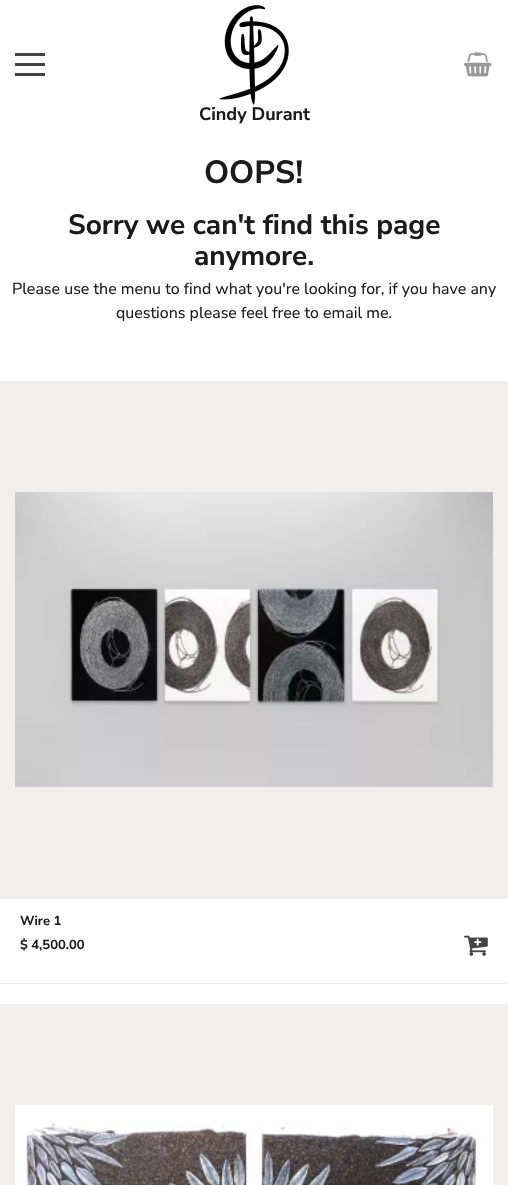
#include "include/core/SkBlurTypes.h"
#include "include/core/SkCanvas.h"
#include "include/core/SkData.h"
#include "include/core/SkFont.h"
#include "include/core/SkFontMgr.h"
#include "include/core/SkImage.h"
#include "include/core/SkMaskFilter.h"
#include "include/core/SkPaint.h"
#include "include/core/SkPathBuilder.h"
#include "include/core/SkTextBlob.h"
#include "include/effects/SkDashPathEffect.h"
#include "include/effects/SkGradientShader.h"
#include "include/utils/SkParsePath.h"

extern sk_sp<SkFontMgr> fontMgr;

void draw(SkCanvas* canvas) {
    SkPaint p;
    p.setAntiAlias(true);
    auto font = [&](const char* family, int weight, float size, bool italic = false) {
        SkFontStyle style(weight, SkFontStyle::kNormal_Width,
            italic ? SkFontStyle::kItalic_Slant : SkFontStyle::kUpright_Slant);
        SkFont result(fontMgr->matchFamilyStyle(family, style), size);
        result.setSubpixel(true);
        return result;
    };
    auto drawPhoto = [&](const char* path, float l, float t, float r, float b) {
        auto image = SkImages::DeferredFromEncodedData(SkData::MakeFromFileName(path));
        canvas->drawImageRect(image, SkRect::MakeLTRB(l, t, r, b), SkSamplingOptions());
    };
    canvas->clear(0xFFFFFFFF);
    {
        const struct { float l, t, r, b; SkColor color; } items[] = {
            {15, 53, 45, 56, 0xFF444444},
            {15, 63, 45, 66, 0xFF444444},
            {15, 73, 45, 76, 0xFF444444},
        };
        for (auto [l, t, r, b, color] : items) {
            p.setColor(color);
            canvas->drawRect(SkRect::MakeLTRB(l, t, r, b), p);
        }
    }
    drawPhoto("media/1.png", 464, 52, 492, 77);
    drawPhoto("media/2.png", 219, 5, 289, 105);
    auto font1 = font("Nunito Sans", 200, 18);
    p.setColor(0xFF1B1B1B);
    canvas->drawString("Cindy Durant", 199, 120, font1, p);
    auto font2 = font("Nunito Sans", 200, 32);
    canvas->drawString("OOPS!", 204, 183, font2, p);
    auto font3 = font("Nunito Sans", 200, 28);
    canvas->drawString("Sorry we can't find this page", 68, 234, font3, p);
    canvas->drawString("anymore.", 194, 265, font3, p);
    auto font4 = font("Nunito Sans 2", 200, 16);
    canvas->drawString("Please use the menu to find what you're looking for, if you have any", 12, 294, font4, p);
    canvas->drawString("questions please feel free to email me.", 116, 318, font4, p);
    p.setColor(0xFFF0EFEB);
    canvas->drawRect(SkRect::MakeLTRB(0, 381, 508, 899), p);
    drawPhoto("media/3.png", 15, 492, 493, 787);
    p.setColor(0xFFE8E8E8);
    canvas->drawRect(SkRect::MakeLTRB(0, 983, 508, 984), p);
    auto font5 = font("Nunito Sans", 200, 13);
    p.setColor(0xFF1B1B1B);
    canvas->drawString("Wire 1", 20, 925, font5, p);
    canvas->drawString("$ 4,500.00", 20, 949, font5, p);
    drawPhoto("media/4.png", 464, 935, 488, 956);
    p.setColor(0xFFF0EFEB);
    canvas->drawRect(SkRect::MakeLTRB(0, 1004, 508, 1185), p);
    drawPhoto("media/5.png", 15, 1105, 493, 1185);
}
